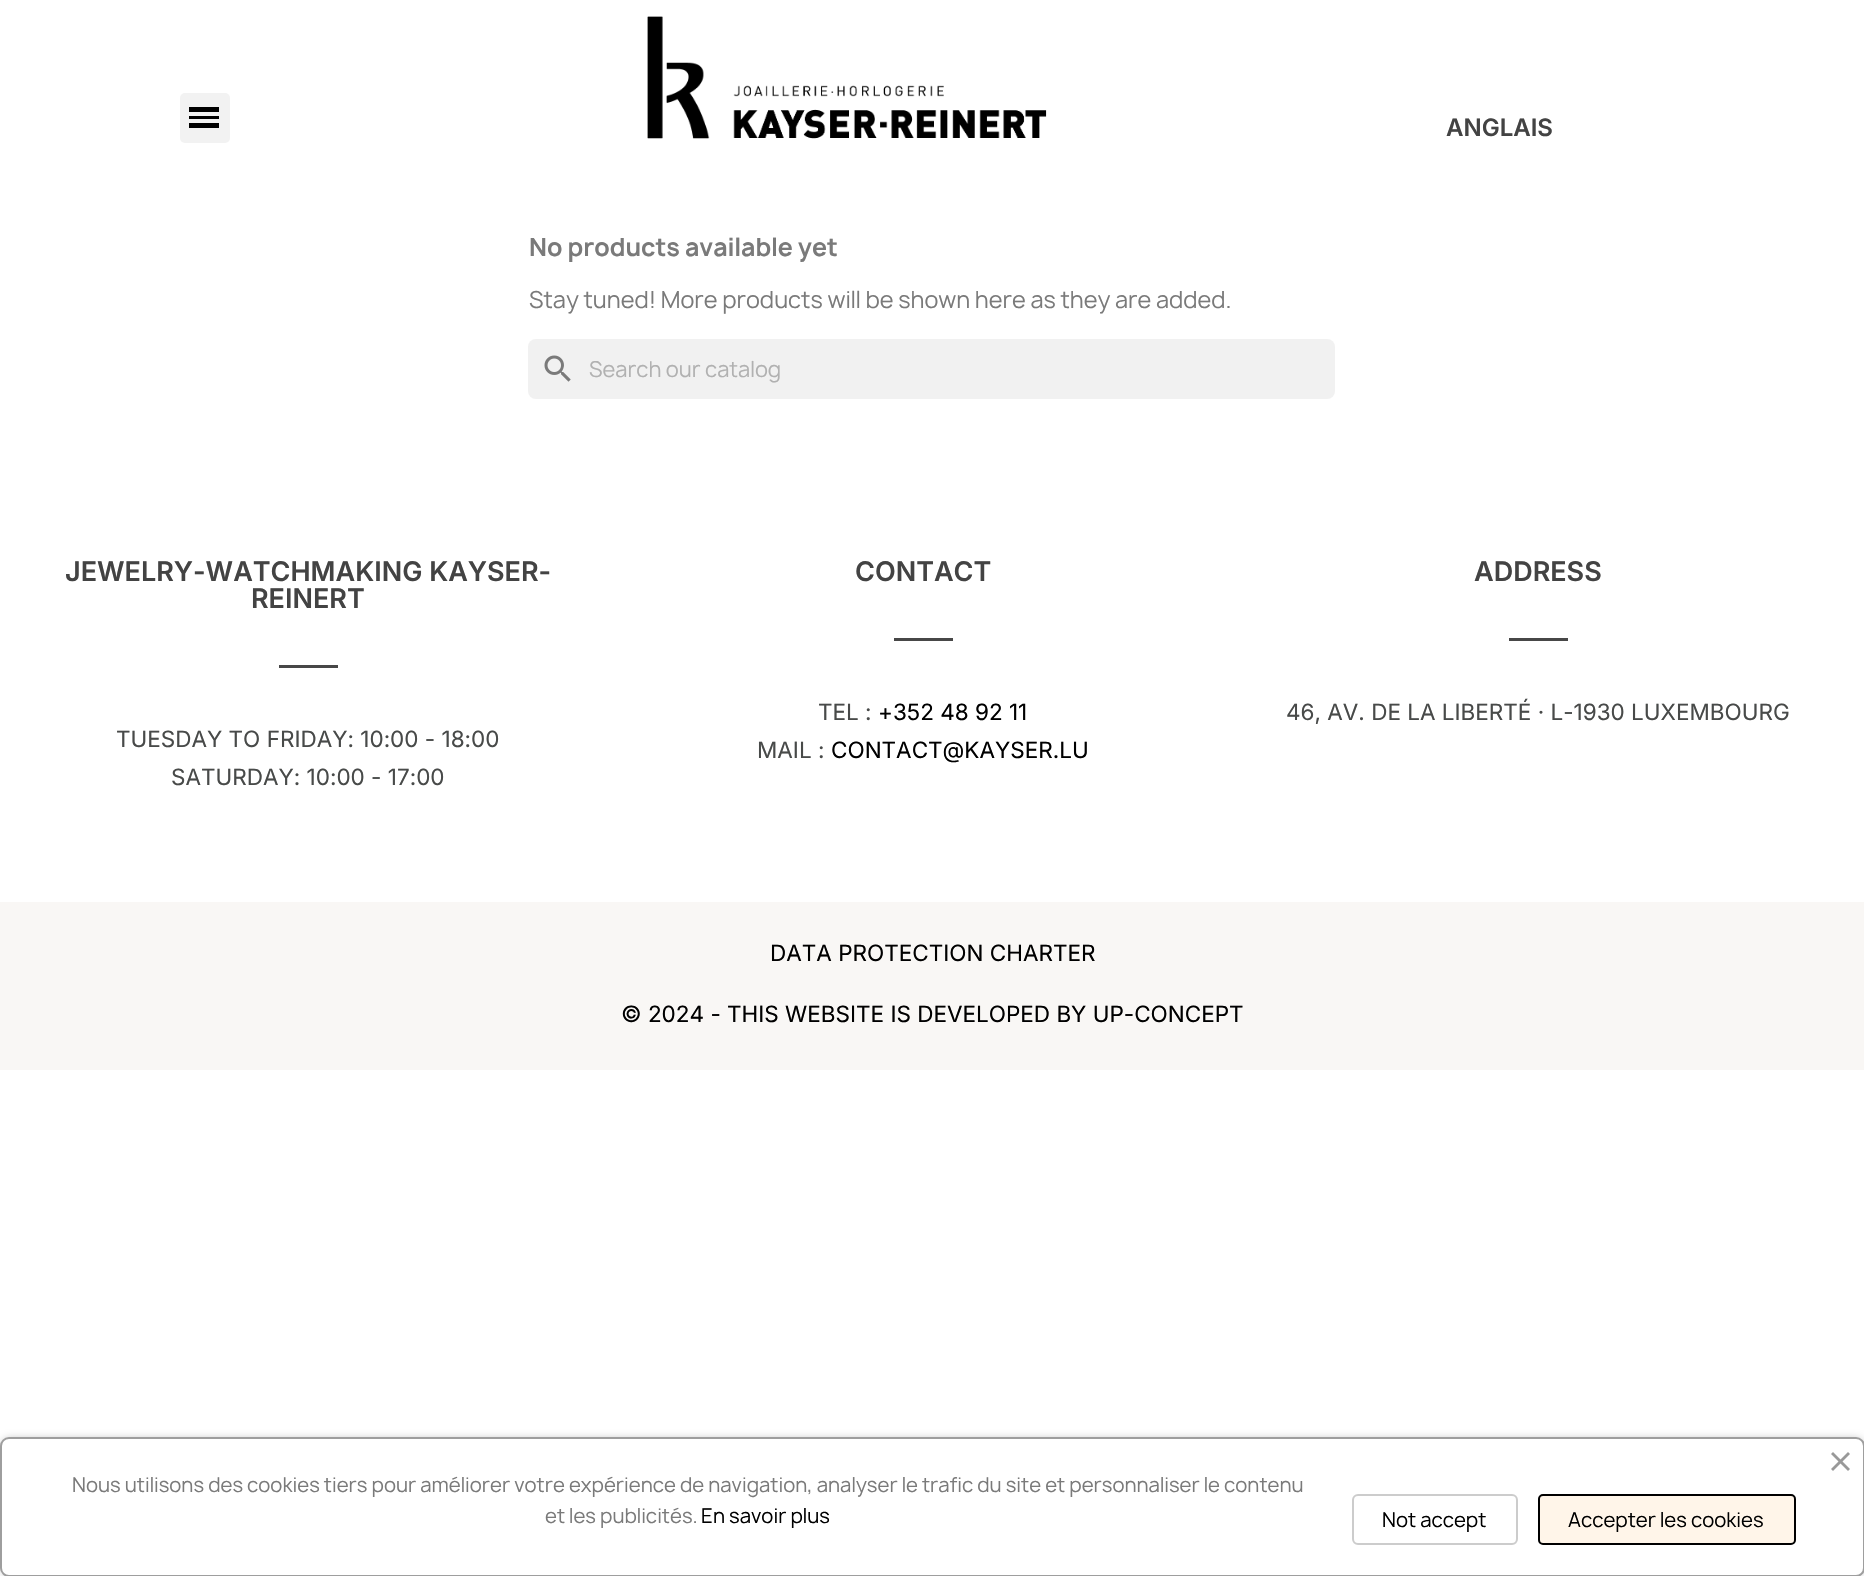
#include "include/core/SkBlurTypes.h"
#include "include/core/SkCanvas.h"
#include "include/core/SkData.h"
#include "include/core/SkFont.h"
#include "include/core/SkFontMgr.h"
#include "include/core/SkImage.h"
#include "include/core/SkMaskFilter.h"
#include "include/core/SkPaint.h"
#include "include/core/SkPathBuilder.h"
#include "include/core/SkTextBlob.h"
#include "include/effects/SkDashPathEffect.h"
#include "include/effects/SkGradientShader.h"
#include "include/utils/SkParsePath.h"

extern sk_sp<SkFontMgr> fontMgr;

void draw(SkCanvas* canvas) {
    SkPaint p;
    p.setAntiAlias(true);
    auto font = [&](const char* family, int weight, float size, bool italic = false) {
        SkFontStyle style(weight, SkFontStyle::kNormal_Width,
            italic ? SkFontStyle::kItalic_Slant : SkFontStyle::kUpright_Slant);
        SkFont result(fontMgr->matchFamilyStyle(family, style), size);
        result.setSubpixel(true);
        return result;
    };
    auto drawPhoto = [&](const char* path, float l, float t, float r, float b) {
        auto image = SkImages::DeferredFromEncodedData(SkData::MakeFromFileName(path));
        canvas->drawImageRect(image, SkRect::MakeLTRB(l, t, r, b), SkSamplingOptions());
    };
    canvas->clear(0xFFFFFFFF);
    p.setColor(0xFFF2F2F2);
    canvas->drawRoundRect(SkRect::MakeLTRB(180, 93, 230, 143), 5, 5, p);
    {
        const struct { float l, t, r, b; SkColor color; } items[] = {
            {189, 116, 219, 119, 0xFF000000},
            {189, 107, 219, 112, 0xFF000000},
            {189, 123, 219, 128, 0xFF000000},
        };
        for (auto [l, t, r, b, color] : items) {
            p.setColor(color);
            canvas->drawRect(SkRect::MakeLTRB(l, t, r, b), p);
        }
    }
    drawPhoto("media/1.png", 647, 16, 1047, 139);
    auto font1 = font("Inter", 600, 24);
    p.setColor(0xFF434343);
    canvas->drawString("ANGLAIS", 1446, 136, font1, p);
    auto font2 = font("Manrope", 700, 24);
    p.setColor(0xFF7A7A7A);
    canvas->drawString("No products available yet", 529, 256, font2, p);
    auto font3 = font("Manrope", 400, 22.5f);
    canvas->drawString("Stay tuned! More products will be shown here as they are added.", 529, 308, font3, p);
    p.setColor(0xFFF1F1F1);
    canvas->drawRoundRect(SkRect::MakeLTRB(528, 339, 1335, 399), 8, 8, p);
    drawPhoto("media/2.png", 544, 355, 571, 382);
    auto font4 = font("Manrope", 400, 21);
    p.setColor(0xFFB1B1B1);
    canvas->drawString("Search our catalog", 589, 377, font4, p);
    auto font5 = font("Inter", 600, 27);
    p.setColor(0xFF434343);
    canvas->drawString("JEWELRY-WATCHMAKING KAYSER-", 65, 581, font5, p);
    canvas->drawString("REINERT", 251, 608, font5, p);
    p.setColor(0xFF474747);
    canvas->drawRect(SkRect::MakeLTRB(279, 665, 338, 668), p);
    auto font6 = font("Inter", 400, 22.5f);
    p.setColor(0xFF484A49);
    canvas->drawString("TUESDAY TO FRIDAY: 10:00 - 18:00", 116, 747, font6, p);
    canvas->drawString("SATURDAY: 10:00 - 17:00", 171, 785, font6, p);
    p.setColor(0xFF434343);
    canvas->drawString("CONTACT", 855, 581, font5, p);
    p.setColor(0xFF474747);
    canvas->drawRect(SkRect::MakeLTRB(894, 638, 953, 641), p);
    p.setColor(0xFF484A49);
    canvas->drawString("TEL :", 818, 720, font6, p);
    p.setColor(0xFF000000);
    canvas->drawString("+352 48 92 11", 878, 720, font6, p);
    p.setColor(0xFF484A49);
    canvas->drawString("MAIL :", 757, 758, font6, p);
    p.setColor(0xFF000000);
    canvas->drawString("CONTACT@KAYSER.LU", 831, 758, font6, p);
    p.setColor(0xFF434343);
    canvas->drawString("ADDRESS", 1474, 581, font5, p);
    p.setColor(0xFF474747);
    canvas->drawRect(SkRect::MakeLTRB(1509, 638, 1568, 641), p);
    p.setColor(0xFF484A49);
    canvas->drawString("46, AV. DE LA LIBERTÉ · L-1930 LUXEMBOURG", 1286, 720, font6, p);
    p.setColor(0xFFF9F7F5);
    canvas->drawRect(SkRect::MakeLTRB(0, 902, 1864, 1070), p);
    p.setColor(0xFF000000);
    canvas->drawString("DATA PROTECTION CHARTER", 770, 961, font6, p);
    canvas->drawString("© 2024 - THIS WEBSITE IS DEVELOPED BY UP-CONCEPT", 621, 1022, font6, p);
    p.setColor(0xFF9E9E9E);
    p.setMaskFilter(SkMaskFilter::MakeBlur(kNormal_SkBlurStyle, 5));
    canvas->drawRoundRect(SkRect::MakeLTRB(3, 1440, 1862, 1574), 6, 6, p);
    p.setMaskFilter(nullptr);
    p.setColor(0xFFFFFFFF);
    canvas->drawRoundRect(SkRect::MakeLTRB(1, 1438, 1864, 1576), 8, 8, p);
    p.setStyle(SkPaint::kStroke_Style);
    p.setStrokeWidth(2);
    p.setColor(0xFF9E9E9E);
    canvas->drawRoundRect(SkRect::MakeLTRB(1, 1438, 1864, 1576), 8, 8, p);
    p.setStyle(SkPaint::kFill_Style);
    p.setColor(0xFF999999);
    canvas->drawPath(SkPathBuilder().moveTo(1831, 1469).lineTo(1848, 1452).lineTo(1850, 1454).lineTo(1833, 1471).close().detach(), p);
    canvas->drawPath(SkPathBuilder().moveTo(1833, 1452).lineTo(1850, 1469).lineTo(1848, 1471).lineTo(1831, 1454).close().detach(), p);
    auto font7 = font("Manrope", 400, 19.5f);
    p.setColor(0xFF7A7A7A);
    canvas->drawString("Nous utilisons des cookies tiers pour améliorer votre expérience de navigation, analyser le trafic du site et personnaliser le contenu", 72, 1492, font7, p);
    canvas->drawString("et les publicités.", 545, 1523, font7, p);
    p.setColor(0xFF000000);
    canvas->drawString("En savoir plus", 701, 1523, font7, p);
    p.setStyle(SkPaint::kStroke_Style);
    p.setColor(0xFFCCCCCC);
    canvas->drawRoundRect(SkRect::MakeLTRB(1353, 1495, 1517, 1544), 5, 5, p);
    p.setStyle(SkPaint::kFill_Style);
    p.setColor(0xFF000000);
    canvas->drawString("Not accept", 1382, 1527, font7, p);
    p.setColor(0xFFFFF5E9);
    canvas->drawRoundRect(SkRect::MakeLTRB(1539, 1495, 1795, 1544), 4, 4, p);
    p.setStyle(SkPaint::kStroke_Style);
    p.setColor(0xFF000000);
    canvas->drawRoundRect(SkRect::MakeLTRB(1539, 1495, 1795, 1544), 4, 4, p);
    p.setStyle(SkPaint::kFill_Style);
    canvas->drawString("Accepter les cookies", 1568, 1527, font7, p);
}
